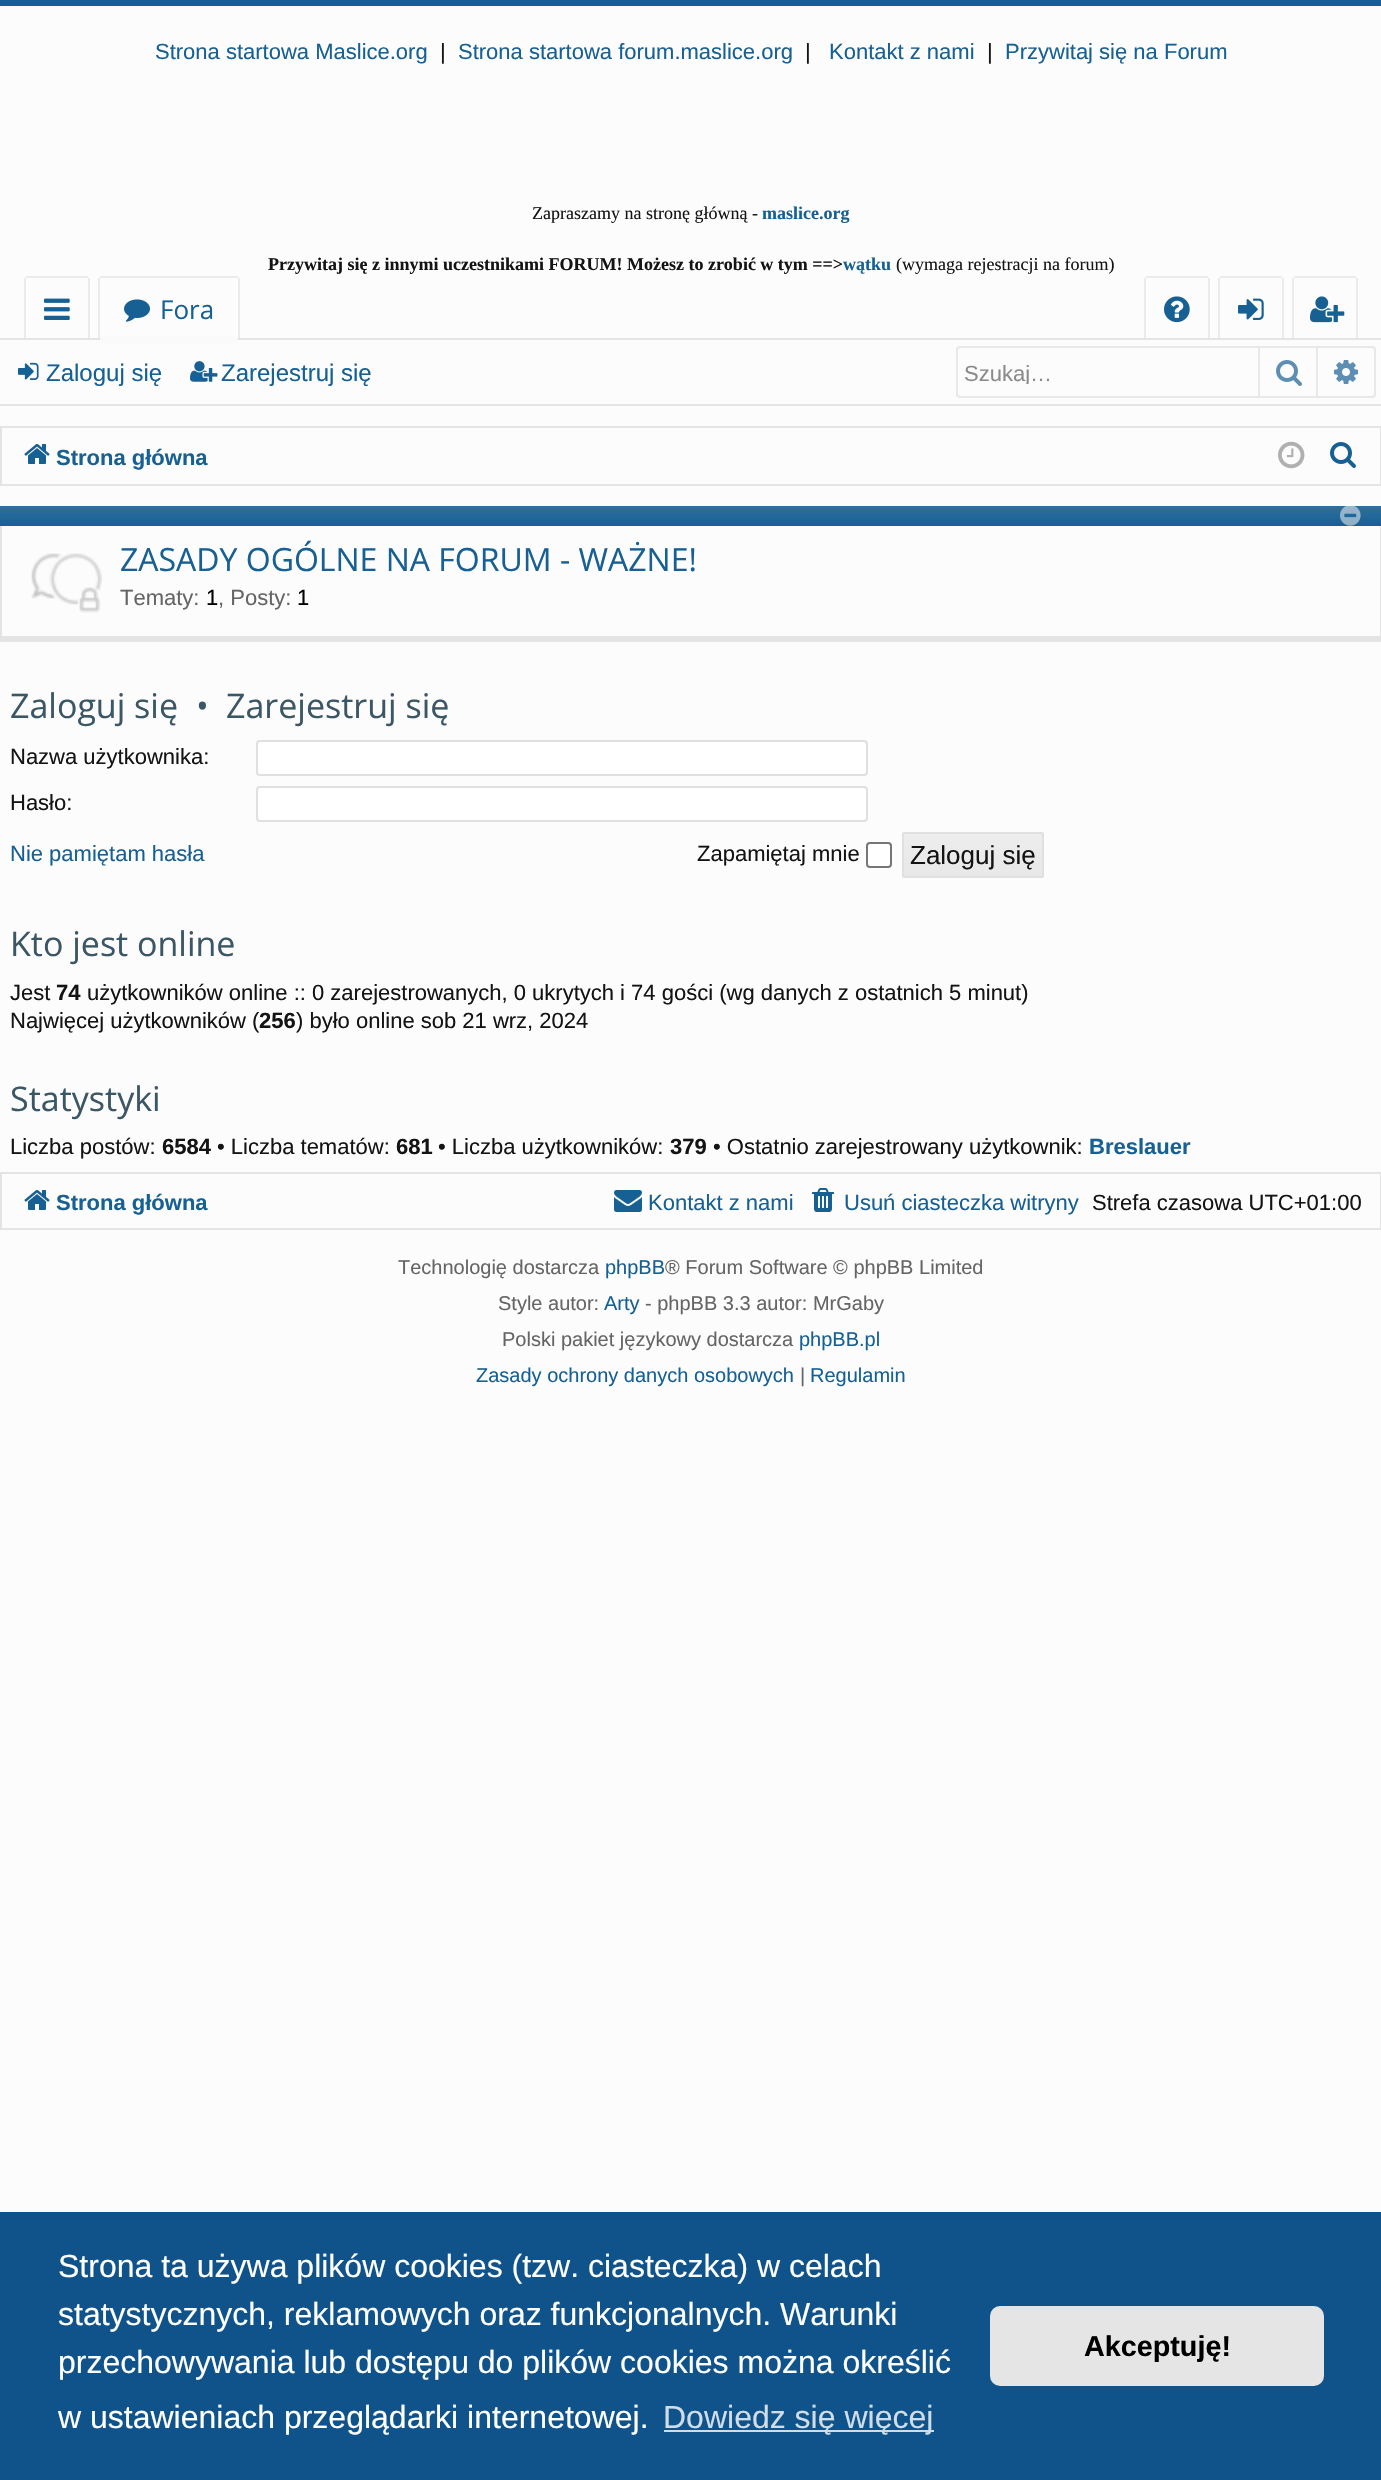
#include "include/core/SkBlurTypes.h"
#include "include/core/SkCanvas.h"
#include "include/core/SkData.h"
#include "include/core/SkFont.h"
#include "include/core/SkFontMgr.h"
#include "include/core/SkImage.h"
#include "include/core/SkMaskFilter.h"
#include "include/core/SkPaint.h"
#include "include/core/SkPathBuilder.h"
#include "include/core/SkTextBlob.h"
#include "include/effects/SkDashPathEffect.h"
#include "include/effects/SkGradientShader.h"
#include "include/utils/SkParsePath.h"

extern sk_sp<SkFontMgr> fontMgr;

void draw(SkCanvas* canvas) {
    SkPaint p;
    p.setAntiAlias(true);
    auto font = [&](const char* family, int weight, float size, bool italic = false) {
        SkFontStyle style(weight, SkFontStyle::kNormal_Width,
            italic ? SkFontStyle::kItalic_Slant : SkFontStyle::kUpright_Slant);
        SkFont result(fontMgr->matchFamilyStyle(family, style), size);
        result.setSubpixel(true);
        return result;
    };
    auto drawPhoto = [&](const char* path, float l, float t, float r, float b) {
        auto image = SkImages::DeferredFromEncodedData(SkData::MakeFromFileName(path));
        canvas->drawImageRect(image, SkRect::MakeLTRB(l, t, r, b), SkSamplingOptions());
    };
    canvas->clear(0xFFFCFCFC);
    p.setColor(0xFF176093);
    canvas->drawRect(SkRect::MakeLTRB(0, 0, 1381, 6), p);
    auto font1 = font("Liberation Sans", 400, 22);
    canvas->drawString("Strona startowa Maslice.org", 155, 59, font1, p);
    p.setColor(0xFF141414);
    canvas->drawString("|", 440, 59, font1, p);
    p.setColor(0xFF176093);
    canvas->drawString("Strona startowa forum.maslice.org", 458, 59, font1, p);
    p.setColor(0xFF141414);
    canvas->drawString("|", 805, 59, font1, p);
    p.setColor(0xFF176093);
    canvas->drawString("Kontakt z nami", 829, 59, font1, p);
    p.setColor(0xFF141414);
    canvas->drawString("|", 987, 59, font1, p);
    p.setColor(0xFF176093);
    canvas->drawString("Przywitaj się na Forum", 1005, 59, font1, p);
    auto font2 = font("Liberation Serif", 700, 18);
    canvas->drawString("maslice.org", 762, 219, font2, p);
    p.setColor(0xFF141414);
    canvas->drawString("Przywitaj się z innymi uczestnikami FORUM! Możesz to zrobić w tym ==>", 268, 270, font2, p);
    p.setColor(0xFF176093);
    canvas->drawString("wątku", 843, 270, font2, p);
    auto font3 = font("Liberation Serif", 400, 18);
    p.setColor(0xFF141414);
    canvas->drawString("Zapraszamy na stronę główną -", 532, 219, font3, p);
    canvas->drawString("(wymaga rejestracji na forum)", 896, 270, font3, p);
    {
        const struct { float l, t, r, b; SkColor color; } items[] = {
            {26, 276, 88, 278, 0xFFEBEBEB},
            {88, 278, 90, 340, 0xFFEBEBEB},
            {24, 278, 26, 340, 0xFFEBEBEB},
        };
        for (auto [l, t, r, b, color] : items) {
            p.setColor(color);
            canvas->drawRect(SkRect::MakeLTRB(l, t, r, b), p);
        }
    }
    drawPhoto("media/1.png", 44, 298, 70, 320);
    {
        const struct { float l, t, r, b; SkColor color; } items[] = {
            {100, 276, 238, 278, 0xFFEBEBEB},
            {238, 278, 240, 340, 0xFFEBEBEB},
            {98, 278, 100, 340, 0xFFEBEBEB},
        };
        for (auto [l, t, r, b, color] : items) {
            p.setColor(color);
            canvas->drawRect(SkRect::MakeLTRB(l, t, r, b), p);
        }
    }
    drawPhoto("media/2.png", 124, 299, 150, 322);
    auto font4 = font("Open Sans", 400, 26);
    p.setColor(0xFF176093);
    canvas->drawString("Fora", 160, 319, font4, p);
    {
        const struct { float l, t, r, b; SkColor color; } items[] = {
            {1208, 278, 1210, 340, 0xFFEBEBEB},
            {1144, 278, 1146, 340, 0xFFEBEBEB},
            {1282, 278, 1284, 340, 0xFFEBEBEB},
            {1218, 278, 1220, 340, 0xFFEBEBEB},
            {1356, 278, 1358, 340, 0xFFEBEBEB},
            {1292, 278, 1294, 340, 0xFFEBEBEB},
            {0, 338, 1381, 340, 0xFFE4E4E4},
        };
        for (auto [l, t, r, b, color] : items) {
            p.setColor(color);
            canvas->drawRect(SkRect::MakeLTRB(l, t, r, b), p);
        }
    }
    p.setColor(0xFFFAFAFA);
    canvas->drawPath(SkPathBuilder().moveTo(104, 336).lineTo(234, 336).cubicTo(236, 336, 238, 338, 238, 340).lineTo(238, 344).lineTo(100, 344).lineTo(100, 340).cubicTo(100, 338, 102, 336, 104, 336).close().detach(), p);
    p.setColor(0xFFEBEBEB);
    canvas->drawRect(SkRect::MakeLTRB(1146, 276, 1208, 278), p);
    drawPhoto("media/3.png", 1164, 296, 1190, 323);
    canvas->drawRect(SkRect::MakeLTRB(1220, 276, 1282, 278), p);
    drawPhoto("media/4.png", 1238, 298, 1264, 320);
    canvas->drawRect(SkRect::MakeLTRB(1294, 276, 1356, 278), p);
    drawPhoto("media/5.png", 1310, 296, 1345, 323);
    p.setColor(0xFFE4E4E4);
    canvas->drawRect(SkRect::MakeLTRB(0, 404, 1381, 406), p);
    drawPhoto("media/6.png", 18, 362, 39, 380);
    auto font5 = font("Liberation Sans", 400, 24);
    p.setColor(0xFF176093);
    canvas->drawString("Zaloguj się", 46, 381, font5, p);
    drawPhoto("media/7.png", 190, 361, 218, 382);
    canvas->drawString("Zarejestruj się", 221, 381, font5, p);
    p.setStyle(SkPaint::kStroke_Style);
    p.setStrokeWidth(2);
    p.setColor(0xFFE8E8E8);
    canvas->drawRoundRect(SkRect::MakeLTRB(957, 347, 1375, 397), 3, 3, p);
    canvas->save();
    canvas->clipRect(SkRect::MakeLTRB(964, 360, 1244, 384));
    p.setStyle(SkPaint::kFill_Style);
    p.setColor(0xFF8B8B8B);
    canvas->drawString("Szukaj…", 964, 381, font1, p);
    canvas->restore();
    p.setColor(0xFFE8E8E8);
    canvas->drawRect(SkRect::MakeLTRB(1316, 348, 1318, 396), p);
    canvas->drawRect(SkRect::MakeLTRB(1258, 348, 1260, 396), p);
    drawPhoto("media/8.png", 1276, 360, 1302, 386);
    drawPhoto("media/9.png", 1334, 360, 1358, 384);
    p.setStyle(SkPaint::kStroke_Style);
    p.setColor(0xFFE4E4E4);
    canvas->drawRect(SkRect::MakeLTRB(1, 427, 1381, 485), p);
    drawPhoto("media/10.png", 24, 444, 50, 464);
    auto font6 = font("Liberation Sans", 700, 22);
    p.setStyle(SkPaint::kFill_Style);
    p.setColor(0xFF176093);
    canvas->drawString("Strona główna", 56, 465, font6, p);
    drawPhoto("media/11.png", 1278, 441, 1305, 469);
    drawPhoto("media/12.png", 1330, 442, 1356, 468);
    {
        const struct { float l, t, r, b; SkColor color; } items[] = {
            {1380, 526, 1381, 642, 0xFFE4E4E4},
            {0, 636, 1381, 642, 0xFFE4E4E4},
            {0, 526, 2, 642, 0xFFE4E4E4},
        };
        for (auto [l, t, r, b, color] : items) {
            p.setColor(color);
            canvas->drawRect(SkRect::MakeLTRB(l, t, r, b), p);
        }
    }
    {
        const SkColor colors[] = {0xFF2E709E, 0xFF176093};
        const float stops[] = {0, 1};
        const SkPoint ends[] = {{691, 506}, {691, 526}};
        p.setShader(SkGradientShader::MakeLinear(ends, colors, stops, 2, SkTileMode::kClamp));
        p.setAlpha(255);
    }
    canvas->drawRect(SkRect::MakeLTRB(0, 506, 1381, 526), p);
    drawPhoto("media/13.png", 1340, 506, 1361, 526);
    drawPhoto("media/14.png", 31, 553, 102, 613);
    auto font7 = font("Open Sans", 400, 32);
    p.setShader(nullptr);
    p.setColor(0xFF176093);
    canvas->drawString("ZASADY OGÓLNE NA FORUM - WAŻNE!", 120, 571, font7, p);
    p.setColor(0xFF656565);
    canvas->drawString("Tematy:", 120, 605, font1, p);
    p.setColor(0xFF000000);
    canvas->drawString("1", 206, 605, font1, p);
    p.setColor(0xFF656565);
    canvas->drawString(", Posty:", 218, 605, font1, p);
    p.setColor(0xFF000000);
    canvas->drawString("1", 297, 605, font1, p);
    auto font8 = font("Open Sans", 400, 34);
    p.setColor(0xFF3B5665);
    {
        const struct { const char* s; float x, y; } items[] = {
            {"Zaloguj się", 10, 718},
            {"•", 196, 718},
            {"Zarejestruj się", 226, 718},
        };
        for (auto [s, x, y] : items) {
            canvas->drawString(s, x, y, font8, p);
        }
    }
    p.setColor(0xFF141414);
    canvas->drawString("Nazwa użytkownika:", 10, 764, font1, p);
    p.setColor(0xFFFFFFFF);
    canvas->drawRoundRect(SkRect::MakeLTRB(257, 741, 867, 775), 3, 3, p);
    p.setStyle(SkPaint::kStroke_Style);
    p.setColor(0xFFE0E0E0);
    canvas->drawRoundRect(SkRect::MakeLTRB(257, 741, 867, 775), 3, 3, p);
    p.setStyle(SkPaint::kFill_Style);
    p.setColor(0xFF141414);
    canvas->drawString("Hasło:", 10, 810, font1, p);
    p.setColor(0xFFFFFFFF);
    canvas->drawRoundRect(SkRect::MakeLTRB(257, 787, 867, 821), 3, 3, p);
    p.setStyle(SkPaint::kStroke_Style);
    p.setColor(0xFFE0E0E0);
    canvas->drawRoundRect(SkRect::MakeLTRB(257, 787, 867, 821), 3, 3, p);
    p.setStyle(SkPaint::kFill_Style);
    p.setColor(0xFF176093);
    canvas->drawString("Nie pamiętam hasła", 10, 861, font1, p);
    p.setColor(0xFF141414);
    canvas->drawString("Zapamiętaj mnie", 697, 861, font1, p);
    p.setColor(0xFFFFFFFF);
    canvas->drawRoundRect(SkRect::MakeLTRB(867, 843, 891, 867), 3, 3, p);
    p.setStyle(SkPaint::kStroke_Style);
    p.setColor(0xFF767676);
    canvas->drawRoundRect(SkRect::MakeLTRB(867, 843, 891, 867), 3, 3, p);
    p.setStyle(SkPaint::kFill_Style);
    {
        const SkColor colors[] = {0xFFEDEDED, 0xFFE8E8E8};
        const float stops[] = {0, 1};
        const SkPoint ends[] = {{973, 834}, {973, 876}};
        p.setShader(SkGradientShader::MakeLinear(ends, colors, stops, 2, SkTileMode::kClamp));
        p.setAlpha(255);
    }
    canvas->drawRect(SkRect::MakeLTRB(904, 834, 1042, 876), p);
    p.setStyle(SkPaint::kStroke_Style);
    p.setShader(nullptr);
    p.setColor(0xFFE0E0E0);
    canvas->drawRoundRect(SkRect::MakeLTRB(903, 833, 1043, 877), 1, 1, p);
    auto font9 = font("Liberation Sans", 400, 26);
    p.setStyle(SkPaint::kFill_Style);
    p.setColor(0xFF141414);
    canvas->drawString("Zaloguj się", 910, 864, font9, p);
    p.setColor(0xFF3B5665);
    canvas->drawString("Kto jest online", 10, 956, font8, p);
    p.setColor(0xFF141414);
    canvas->drawString("Jest", 10, 1000, font1, p);
    canvas->drawString("74", 56, 1000, font6, p);
    canvas->drawString("użytkowników online :: 0 zarejestrowanych, 0 ukrytych i 74 gości (wg danych z ostatnich 5 minut)", 87, 1000, font1, p);
    canvas->drawString("Najwięcej użytkowników (", 10, 1028, font1, p);
    canvas->drawString("256", 259, 1028, font6, p);
    canvas->drawString(") było online sob 21 wrz, 2024", 296, 1028, font1, p);
    p.setColor(0xFF3B5665);
    canvas->drawString("Statystyki", 10, 1111, font8, p);
    p.setColor(0xFF141414);
    canvas->drawString("Liczba postów:", 10, 1154, font1, p);
    canvas->drawString("6584", 162, 1154, font6, p);
    canvas->drawString("• Liczba tematów:", 217, 1154, font1, p);
    canvas->drawString("681", 396, 1154, font6, p);
    canvas->drawString("• Liczba użytkowników:", 438, 1154, font1, p);
    canvas->drawString("379", 670, 1154, font6, p);
    canvas->drawString("• Ostatnio zarejestrowany użytkownik:", 713, 1154, font1, p);
    p.setColor(0xFF176093);
    canvas->drawString("Breslauer", 1089, 1154, font6, p);
    p.setStyle(SkPaint::kStroke_Style);
    p.setColor(0xFFE4E4E4);
    canvas->drawRect(SkRect::MakeLTRB(1, 1173, 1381, 1229), p);
    drawPhoto("media/10.png", 24, 1190, 50, 1210);
    p.setStyle(SkPaint::kFill_Style);
    p.setColor(0xFF176093);
    canvas->drawString("Strona główna", 56, 1210, font6, p);
    drawPhoto("media/15.png", 614, 1190, 642, 1212);
    canvas->drawString("Kontakt z nami", 648, 1210, font1, p);
    drawPhoto("media/16.png", 812, 1188, 834, 1212);
    canvas->drawString("Usuń ciasteczka witryny", 844, 1210, font1, p);
    p.setColor(0xFF141414);
    canvas->drawString("Strefa czasowa UTC+01:00", 1092, 1210, font1, p);
    auto font10 = font("Liberation Sans", 400, 20);
    p.setColor(0xFF656565);
    canvas->drawString("Technologię dostarcza", 398, 1274, font10, p);
    p.setColor(0xFF176093);
    canvas->drawString("phpBB", 605, 1274, font10, p);
    p.setColor(0xFF656565);
    canvas->drawString("® Forum Software © phpBB Limited", 665, 1274, font10, p);
    canvas->drawString("Style autor:", 498, 1310, font10, p);
    p.setColor(0xFF176093);
    canvas->drawString("Arty", 604, 1310, font10, p);
    p.setColor(0xFF656565);
    canvas->drawString("- phpBB 3.3 autor: MrGaby", 645, 1310, font10, p);
    canvas->drawString("Polski pakiet językowy dostarcza", 502, 1346, font10, p);
    p.setColor(0xFF176093);
    canvas->drawString("phpBB.pl", 799, 1346, font10, p);
    canvas->drawString("Zasady ochrony danych osobowych", 476, 1382, font10, p);
    p.setColor(0xFF656565);
    canvas->drawString("|", 800, 1382, font10, p);
    p.setColor(0xFF176093);
    canvas->drawString("Regulamin", 810, 1382, font10, p);
    p.setColor(0xFF0F538A);
    canvas->drawRect(SkRect::MakeLTRB(0, 2212, 1381, 2480), p);
    auto font11 = font("Liberation Sans", 400, 32);
    p.setColor(0xFFFFFFFF);
    {
        const struct { const char* s; float x, y; } items[] = {
            {"Strona ta używa plików cookies (tzw. ciasteczka) w celach", 58, 2277},
            {"statystycznych, reklamowych oraz funkcjonalnych. Warunki", 58, 2325},
            {"przechowywania lub dostępu do plików cookies można określić", 58, 2373},
            {"w ustawieniach przeglądarki internetowej.", 58, 2428},
        };
        for (auto [s, x, y] : items) {
            canvas->drawString(s, x, y, font11, p);
        }
    }
    p.setColor(0xFFCFDDE8);
    canvas->drawRect(SkRect::MakeLTRB(664, 2430, 934, 2432), p);
    canvas->drawString("Dowiedz się więcej", 663, 2428, font11, p);
    p.setColor(0xFFE5E5E5);
    canvas->drawRoundRect(SkRect::MakeLTRB(990, 2306, 1324, 2386), 10, 10, p);
    auto font12 = font("Liberation Sans", 700, 28.75f);
    p.setColor(0xFF000000);
    canvas->drawString("Akceptuję!", 1084, 2356, font12, p);
}
